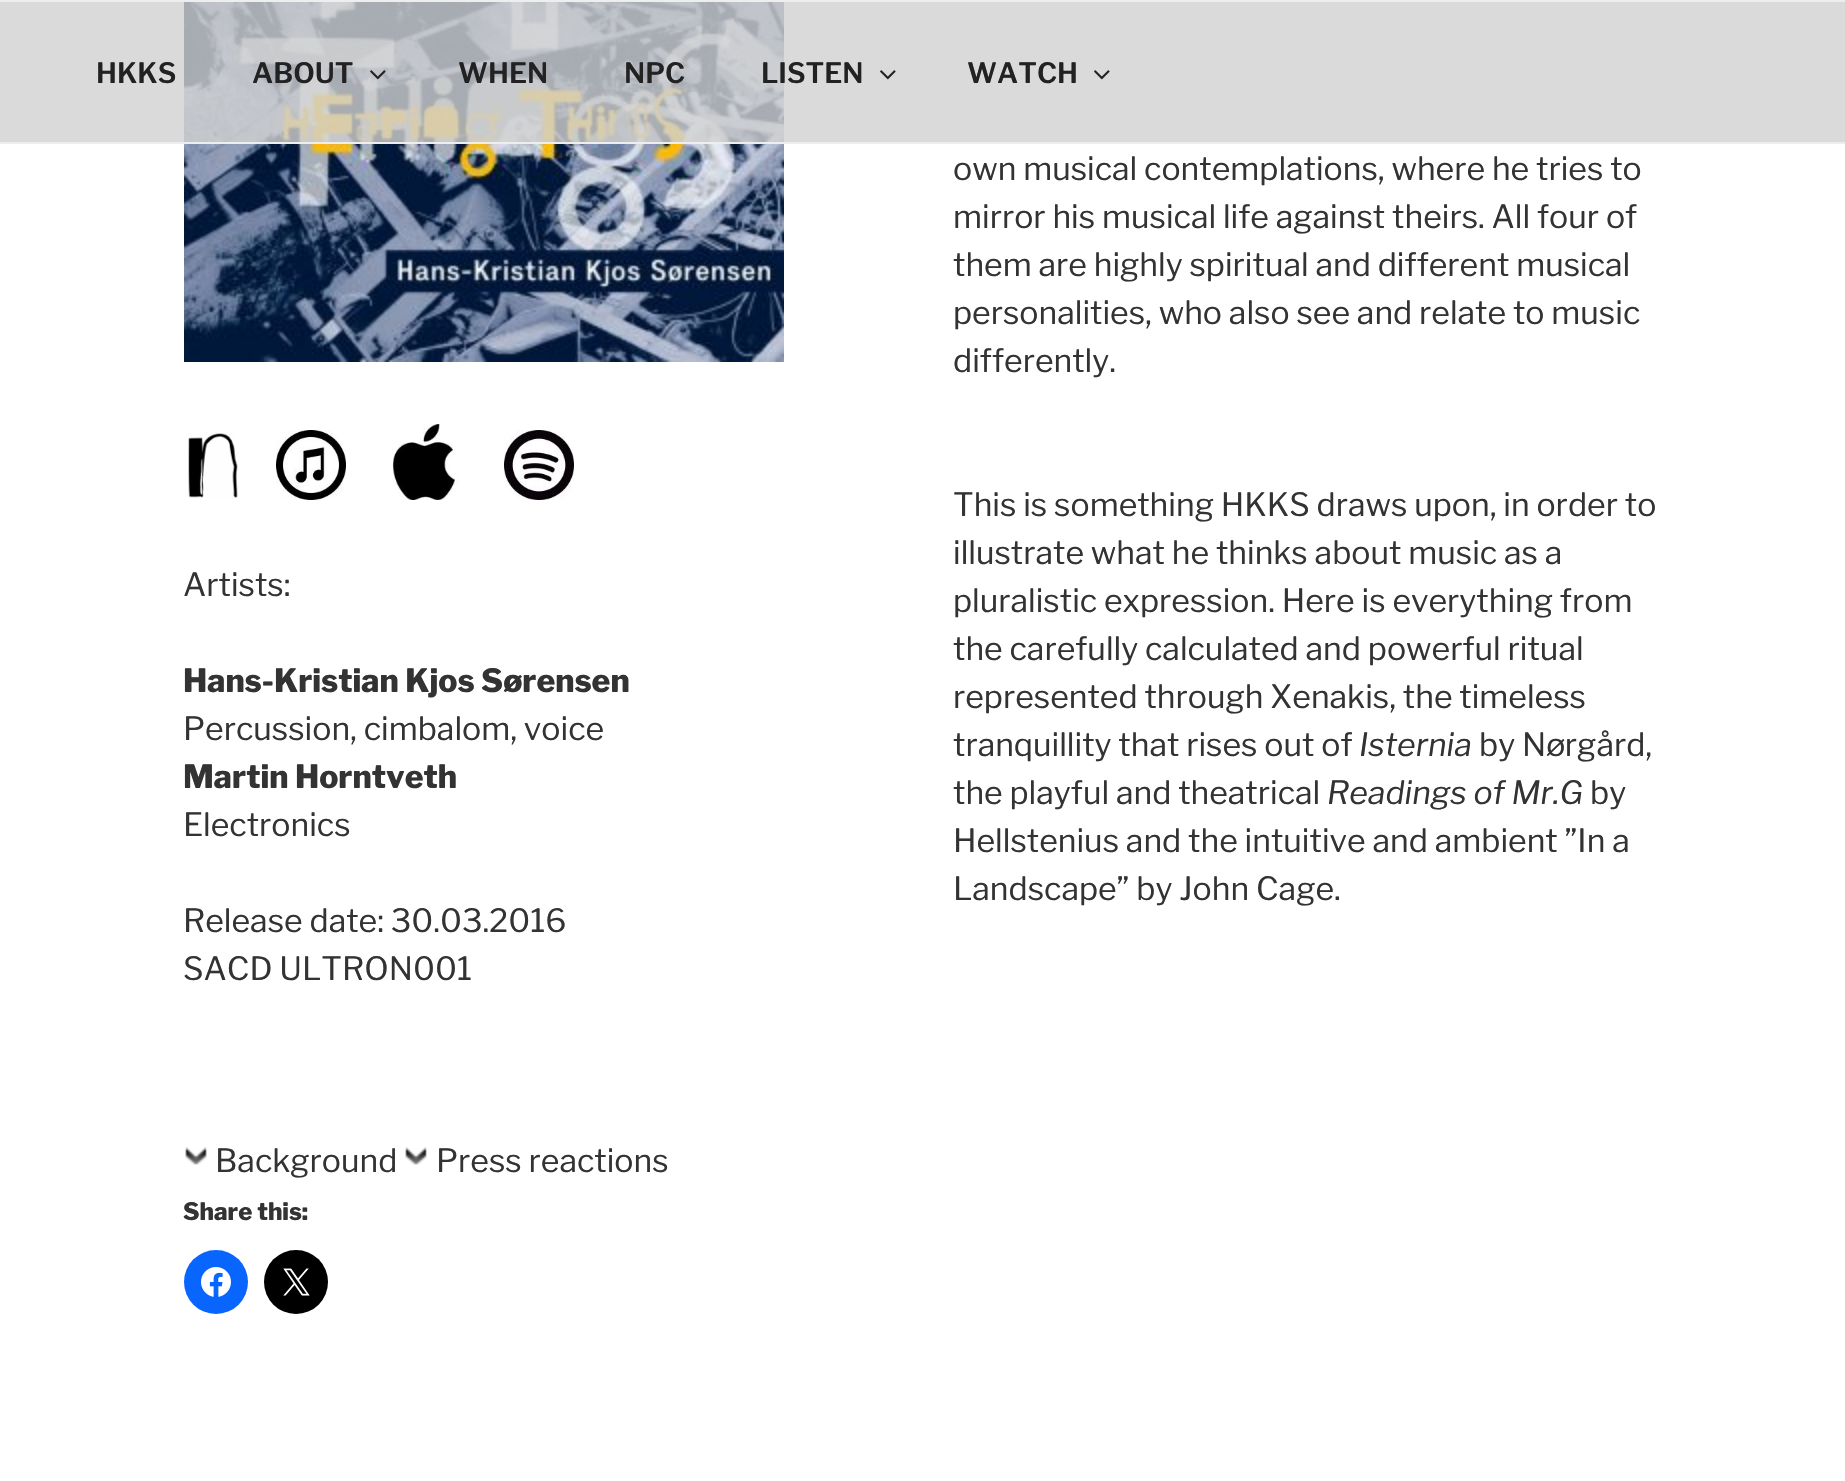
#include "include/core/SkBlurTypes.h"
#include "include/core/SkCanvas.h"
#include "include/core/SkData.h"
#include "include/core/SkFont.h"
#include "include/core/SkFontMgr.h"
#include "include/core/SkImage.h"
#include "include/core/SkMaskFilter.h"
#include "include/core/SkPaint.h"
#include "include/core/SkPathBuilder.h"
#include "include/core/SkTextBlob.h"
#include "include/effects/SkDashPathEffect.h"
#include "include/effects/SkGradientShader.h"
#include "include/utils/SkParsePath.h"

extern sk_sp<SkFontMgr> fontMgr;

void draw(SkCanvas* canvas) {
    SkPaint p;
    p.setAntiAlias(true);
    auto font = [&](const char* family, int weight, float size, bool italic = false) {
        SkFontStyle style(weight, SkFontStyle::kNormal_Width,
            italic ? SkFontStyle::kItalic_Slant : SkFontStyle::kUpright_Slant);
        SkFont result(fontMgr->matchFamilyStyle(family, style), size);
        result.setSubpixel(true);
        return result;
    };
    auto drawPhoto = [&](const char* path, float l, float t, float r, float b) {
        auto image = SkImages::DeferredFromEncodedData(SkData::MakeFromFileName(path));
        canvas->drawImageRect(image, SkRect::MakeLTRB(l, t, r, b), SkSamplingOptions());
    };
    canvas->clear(0xFFFFFFFF);
    drawPhoto("media/4.png", 184, 2, 784, 362);
    {
        const struct { float l, t, r, b; SkColor color; } items[] = {
            {0, 2, 1845, 142, 0xCCD1D1D1},
            {0, 0, 1845, 2, 0xFFEEEEEE},
            {0, 142, 1845, 144, 0xFFEEEEEE},
        };
        for (auto [l, t, r, b, color] : items) {
            p.setColor(color);
            canvas->drawRect(SkRect::MakeLTRB(l, t, r, b), p);
        }
    }
    auto font1 = font("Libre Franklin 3", 100, 28);
    p.setColor(0xFF222222);
    canvas->drawString("HKKS", 96, 83, font1, p);
    canvas->drawString("ABOUT", 252, 83, font1, p);
    drawPhoto("media/1.png", 370, 70, 386, 80);
    {
        const struct { const char* s; float x, y; } items[] = {
            {"WHEN", 458, 83},
            {"NPC", 624, 83},
            {"LISTEN", 761, 83},
        };
        for (auto [s, x, y] : items) {
            canvas->drawString(s, x, y, font1, p);
        }
    }
    drawPhoto("media/2.png", 880, 70, 896, 80);
    canvas->drawString("WATCH", 967, 83, font1, p);
    drawPhoto("media/3.png", 1094, 70, 1110, 80);
    drawPhoto("media/5.png", 188, 433, 238, 498);
    drawPhoto("media/6.png", 276, 430, 346, 500);
    drawPhoto("media/7.png", 392, 424, 459, 500);
    drawPhoto("media/8.png", 504, 430, 574, 500);
    auto font2 = font("Libre Franklin", 100, 32);
    p.setColor(0xFF333333);
    canvas->drawString("Artists:", 183, 596, font2, p);
    auto font3 = font("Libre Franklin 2", 100, 32);
    canvas->drawString("Hans-Kristian Kjos Sørensen", 183, 692, font3, p);
    canvas->drawString("Percussion, cimbalom, voice", 183, 740, font2, p);
    canvas->drawString("Martin Horntveth", 183, 788, font3, p);
    {
        const struct { const char* s; float x, y; } items[] = {
            {"Electronics", 183, 836},
            {"Release date: 30.03.2016", 183, 932},
            {"SACD ULTRON001", 183, 980},
            {"own musical contemplations, where he tries to", 953, 180},
            {"mirror his musical life against theirs. All four of", 953, 228},
            {"them are highly spiritual and different musical", 953, 276},
            {"personalities, who also see and relate to music", 953, 324},
            {"differently.", 953, 372},
            {"This is something HKKS draws upon, in order to", 953, 516},
            {"illustrate what he thinks about music as a", 953, 564},
            {"pluralistic expression. Here is everything from", 953, 612},
            {"the carefully calculated and powerful ritual", 953, 660},
            {"represented through Xenakis, the timeless", 953, 708},
            {"tranquillity that rises out of", 953, 756},
        };
        for (auto [s, x, y] : items) {
            canvas->drawString(s, x, y, font2, p);
        }
    }
    auto font4 = font("Libre Franklin", 100, 32, true);
    canvas->drawString("Isternia", 1359, 756, font4, p);
    canvas->drawString("by Nørgård,", 1479, 756, font2, p);
    canvas->drawString("the playful and theatrical", 953, 804, font2, p);
    canvas->drawString("Readings of Mr.G", 1327, 804, font4, p);
    {
        const struct { const char* s; float x, y; } items[] = {
            {"by", 1590, 804},
            {"Hellstenius and the intuitive and ambient ”In a", 953, 852},
            {"Landscape” by John Cage.", 953, 900},
        };
        for (auto [s, x, y] : items) {
            canvas->drawString(s, x, y, font2, p);
        }
    }
    drawPhoto("media/9.png", 185, 1147, 207, 1165);
    canvas->drawString("Background", 215, 1172, font2, p);
    drawPhoto("media/9.png", 405, 1147, 427, 1165);
    canvas->drawString("Press reactions", 436, 1172, font2, p);
    auto font5 = font("Libre Franklin 2", 100, 24);
    canvas->drawString("Share this:", 183, 1220, font5, p);
    p.setColor(0xFF0866FF);
    canvas->drawCircle(216, 1282, 32, p);
    drawPhoto("media/10.png", 201, 1267, 231, 1297);
    p.setColor(0xFF000000);
    canvas->drawCircle(296, 1282, 32, p);
    drawPhoto("media/11.png", 283, 1268, 310, 1296);
}
